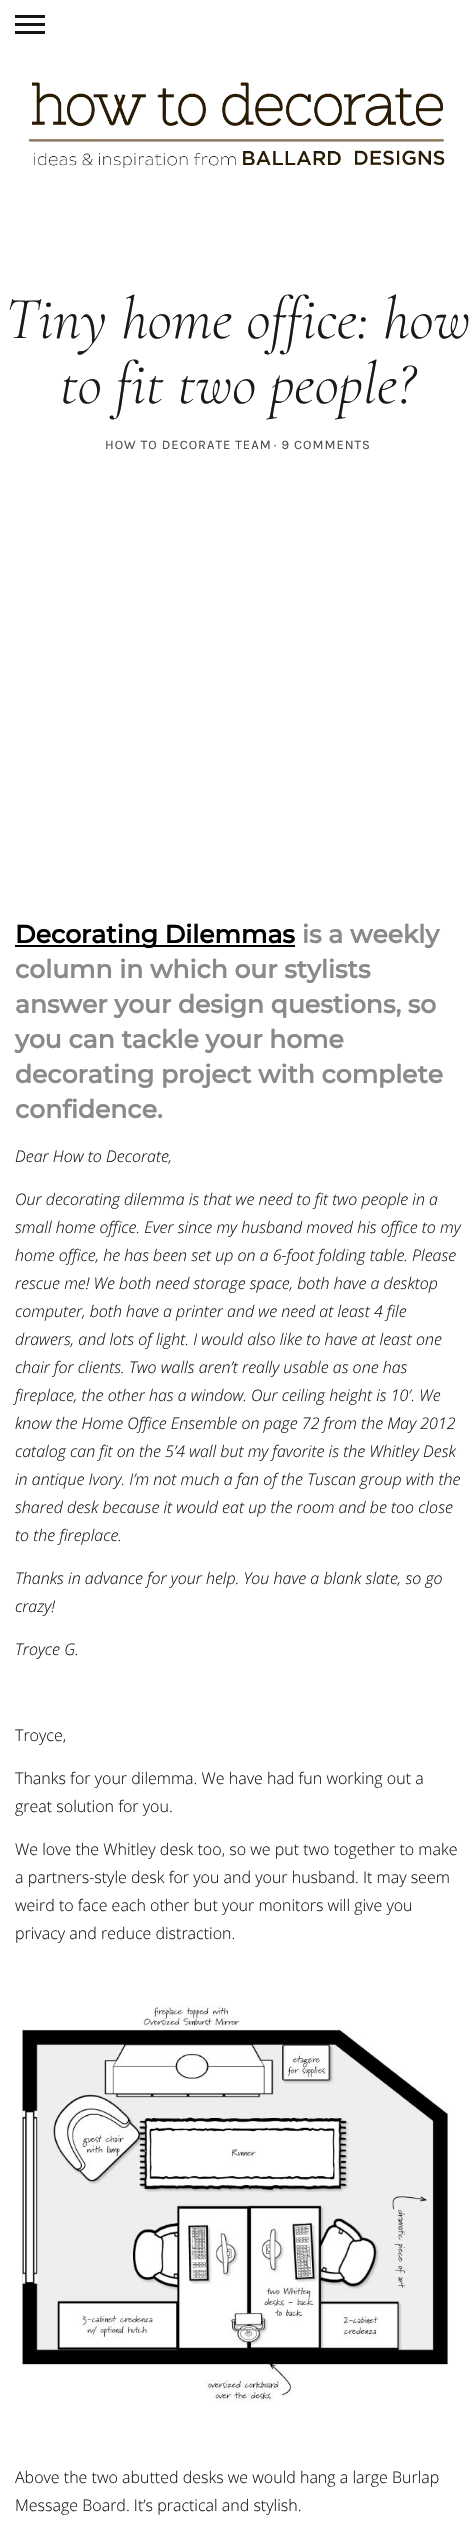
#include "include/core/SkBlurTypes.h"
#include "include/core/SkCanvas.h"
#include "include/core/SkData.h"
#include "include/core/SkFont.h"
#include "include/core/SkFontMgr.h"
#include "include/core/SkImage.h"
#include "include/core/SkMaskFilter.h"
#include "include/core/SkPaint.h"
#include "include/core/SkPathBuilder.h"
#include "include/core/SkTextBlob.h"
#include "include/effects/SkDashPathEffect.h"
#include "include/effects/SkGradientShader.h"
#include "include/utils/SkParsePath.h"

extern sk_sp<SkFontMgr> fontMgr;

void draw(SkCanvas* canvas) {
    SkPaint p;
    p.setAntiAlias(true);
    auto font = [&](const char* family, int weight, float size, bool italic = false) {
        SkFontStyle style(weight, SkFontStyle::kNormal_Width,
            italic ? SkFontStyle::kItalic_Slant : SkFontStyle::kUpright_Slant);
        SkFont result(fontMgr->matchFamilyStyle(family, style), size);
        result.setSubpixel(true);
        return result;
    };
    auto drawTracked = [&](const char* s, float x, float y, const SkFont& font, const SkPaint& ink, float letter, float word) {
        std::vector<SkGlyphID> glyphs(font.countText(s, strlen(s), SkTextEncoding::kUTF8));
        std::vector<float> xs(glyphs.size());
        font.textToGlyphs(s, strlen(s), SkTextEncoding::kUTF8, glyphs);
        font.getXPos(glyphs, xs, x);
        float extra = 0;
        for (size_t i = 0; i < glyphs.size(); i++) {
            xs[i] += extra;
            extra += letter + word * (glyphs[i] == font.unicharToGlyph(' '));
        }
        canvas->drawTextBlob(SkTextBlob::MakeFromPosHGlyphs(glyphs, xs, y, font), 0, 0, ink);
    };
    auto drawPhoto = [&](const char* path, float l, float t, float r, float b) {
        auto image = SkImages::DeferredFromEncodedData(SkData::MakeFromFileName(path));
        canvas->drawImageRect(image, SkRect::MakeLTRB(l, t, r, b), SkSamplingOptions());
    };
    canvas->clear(0xFFFFFFFF);
    {
        const struct { float l, t, r, b; SkColor color; } items[] = {
            {15, 15, 45, 18, 0xFF161616},
            {15, 23, 45, 26, 0xFF161616},
            {15, 31, 45, 34, 0xFF161616},
        };
        for (auto [l, t, r, b, color] : items) {
            p.setColor(color);
            canvas->drawRect(SkRect::MakeLTRB(l, t, r, b), p);
        }
    }
    drawPhoto("media/1.png", 28, 82, 445, 168);
    auto font1 = font("Cormorant", 300, 60, true);
    p.setColor(0xFF1A1A1A);
    canvas->drawString("Tiny home office: how", 5, 338, font1, p);
    canvas->drawString("to fit two people?", 60, 403, font1, p);
    auto font2 = font("Karla", 400, 13);
    p.setColor(0xFF4D4D4D);
    drawTracked("HOW TO DECORATE TEAM", 105, 449, font2, p, 1, 0);
    drawTracked("· 9 COMMENTS", 274, 449, font2, p, 1, 0);
    p.setColor(0xFF000000);
    canvas->drawRect(SkRect::MakeLTRB(15, 945, 295, 947), p);
    auto font3 = font("Montserrat", 700, 25);
    canvas->drawString("Decorating Dilemmas", 15, 943, font3, p);
    p.setColor(0xFF8A8A8A);
    {
        const struct { const char* s; float x, y; } items[] = {
            {"is a weekly", 302, 943},
            {"column in which our stylists", 15, 978},
            {"answer your design questions, so", 15, 1013},
            {"you can tackle your home", 15, 1048},
            {"decorating project with complete", 15, 1083},
            {"confidence.", 15, 1118},
        };
        for (auto [s, x, y] : items) {
            canvas->drawString(s, x, y, font3, p);
        }
    }
    auto font4 = font("Open Sans", 300, 16, true);
    p.setColor(0xFF1A1A1A);
    {
        const struct { const char* s; float x, y; } items[] = {
            {"Dear How to Decorate,", 15, 1162},
            {"Our decorating dilemma is that we need to fit two people in a", 15, 1205},
            {"small home office. Ever since my husband moved his office to my", 15, 1233},
            {"home office, he has been set up on a 6-foot folding table. Please", 15, 1261},
            {"rescue me! We both need storage space, both have a desktop", 15, 1289},
            {"computer, both have a printer and we need at least 4 file", 15, 1317},
            {"drawers, and lots of light. I would also like to have at least one", 15, 1345},
            {"chair for clients. Two walls aren’t really usable as one has", 15, 1373},
            {"fireplace, the other has a window. Our ceiling height is 10′. We", 15, 1401},
            {"know the Home Office Ensemble on page 72 from the May 2012", 15, 1429},
            {"catalog can fit on the 5’4 wall but my favorite is the Whitley Desk", 15, 1457},
            {"in antique Ivory. I’m not much a fan of the Tuscan group with the", 15, 1485},
            {"shared desk because it would eat up the room and be too close", 15, 1513},
            {"to the fireplace.", 15, 1541},
            {"Thanks in advance for your help. You have a blank slate, so go", 15, 1584},
            {"crazy!", 15, 1612},
            {"Troyce G.", 15, 1655},
        };
        for (auto [s, x, y] : items) {
            canvas->drawString(s, x, y, font4, p);
        }
    }
    auto font5 = font("Open Sans", 300, 16);
    {
        const struct { const char* s; float x, y; } items[] = {
            {"Troyce,", 15, 1741},
            {"Thanks for your dilemma. We have had fun working out a", 15, 1784},
            {"great solution for you.", 15, 1812},
            {"We love the Whitley desk too, so we put two together to make", 15, 1855},
            {"a partners-style desk for you and your husband. It may seem", 15, 1883},
            {"weird to face each other but your monitors will give you", 15, 1911},
            {"privacy and reduce distraction.", 15, 1939},
        };
        for (auto [s, x, y] : items) {
            canvas->drawString(s, x, y, font5, p);
        }
    }
    drawPhoto("media/2.png", 21, 2005, 449, 2402);
    canvas->drawString("Above the two abutted desks we would hang a large Burlap", 15, 2483, font5, p);
    canvas->drawString("Message Board. It’s practical and stylish.", 15, 2511, font5, p);
}
